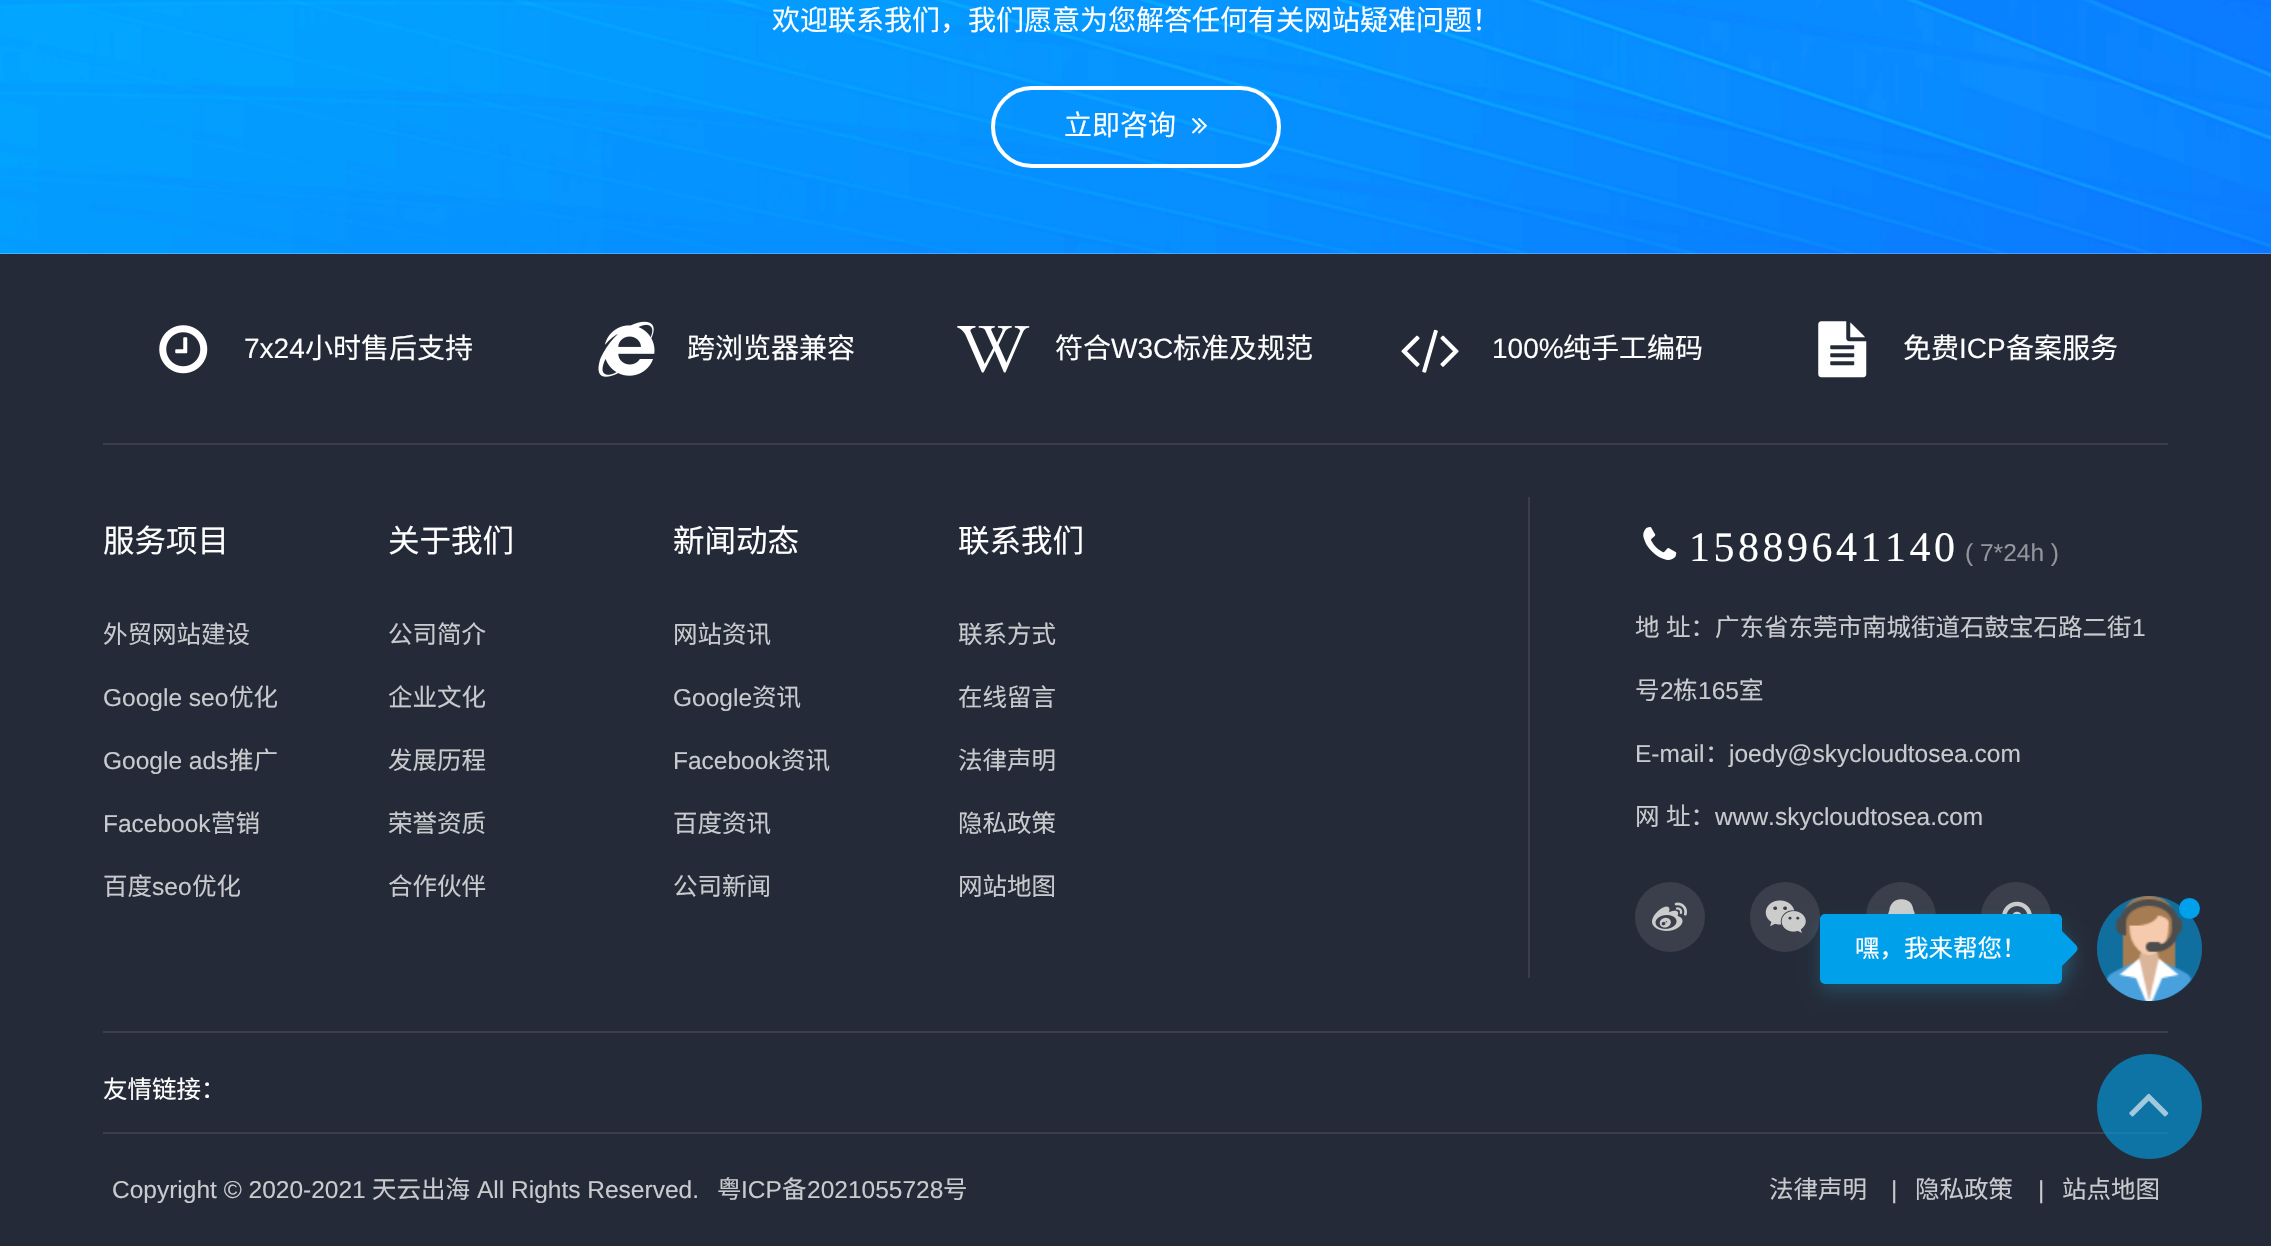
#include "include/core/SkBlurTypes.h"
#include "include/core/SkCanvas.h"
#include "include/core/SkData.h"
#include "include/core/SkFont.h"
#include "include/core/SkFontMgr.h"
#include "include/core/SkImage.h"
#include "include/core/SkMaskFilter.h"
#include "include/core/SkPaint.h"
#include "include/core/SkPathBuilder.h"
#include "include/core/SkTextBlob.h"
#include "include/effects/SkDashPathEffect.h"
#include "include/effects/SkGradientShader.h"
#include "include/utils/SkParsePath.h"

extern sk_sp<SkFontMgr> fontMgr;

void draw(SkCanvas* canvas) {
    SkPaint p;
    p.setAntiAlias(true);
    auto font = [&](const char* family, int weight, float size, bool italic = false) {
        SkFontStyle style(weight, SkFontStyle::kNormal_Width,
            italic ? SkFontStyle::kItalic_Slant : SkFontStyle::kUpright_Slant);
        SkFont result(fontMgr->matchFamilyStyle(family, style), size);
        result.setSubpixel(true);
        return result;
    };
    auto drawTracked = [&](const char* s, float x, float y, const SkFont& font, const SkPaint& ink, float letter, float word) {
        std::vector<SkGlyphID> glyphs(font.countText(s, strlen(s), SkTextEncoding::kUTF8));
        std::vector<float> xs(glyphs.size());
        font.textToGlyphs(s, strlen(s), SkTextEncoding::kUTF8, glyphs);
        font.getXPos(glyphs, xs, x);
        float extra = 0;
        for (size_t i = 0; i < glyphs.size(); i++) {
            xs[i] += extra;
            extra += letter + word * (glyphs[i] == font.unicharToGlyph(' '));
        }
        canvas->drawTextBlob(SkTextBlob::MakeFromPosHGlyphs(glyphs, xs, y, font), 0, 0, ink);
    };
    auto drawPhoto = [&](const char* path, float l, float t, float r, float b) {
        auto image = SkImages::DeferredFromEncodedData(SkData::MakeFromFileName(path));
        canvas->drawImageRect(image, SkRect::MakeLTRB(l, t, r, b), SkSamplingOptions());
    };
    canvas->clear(0xFFFFFFFF);
    drawPhoto("media/1.png", 0, 0, 2271, 254);
    auto font1 = font("Noto Sans CJK SC", 400, 28);
    p.setColor(0xFFFFFFFF);
    canvas->drawString("欢迎联系我们，我们愿意为您解答任何有关网站疑难问题！", 772, 30, font1, p);
    p.setStyle(SkPaint::kStroke_Style);
    p.setStrokeWidth(4);
    canvas->drawRoundRect(SkRect::MakeLTRB(993, 88, 1279, 166), 39, 39, p);
    p.setStyle(SkPaint::kFill_Style);
    canvas->drawString("立即咨询", 1064, 135, font1, p);
    drawPhoto("media/2.png", 1192, 118, 1207, 134);
    p.setColor(0xFF242A37);
    canvas->drawRect(SkRect::MakeLTRB(0, 254, 2271, 1246), p);
    p.setColor(0xFF3A3F4B);
    canvas->drawRect(SkRect::MakeLTRB(103, 443, 2168, 445), p);
    drawPhoto("media/3.png", 159, 325, 208, 374);
    auto font2 = font("Liberation Sans", 400, 28);
    p.setColor(0xFFFFFFFF);
    canvas->drawString("7x24", 244, 358, font2, p);
    canvas->drawString("小时售后支持", 305, 358, font1, p);
    drawPhoto("media/4.png", 598, 321, 655, 377);
    canvas->drawString("跨浏览器兼容", 687, 358, font1, p);
    drawPhoto("media/5.png", 957, 326, 1030, 373);
    canvas->drawString("符合", 1055, 358, font1, p);
    canvas->drawString("W3C", 1111, 358, font2, p);
    canvas->drawString("标准及规范", 1173, 358, font1, p);
    drawPhoto("media/6.png", 1401, 329, 1459, 373);
    canvas->drawString("100%", 1492, 358, font2, p);
    canvas->drawString("纯手工编码", 1563, 358, font1, p);
    drawPhoto("media/7.png", 1818, 321, 1867, 378);
    canvas->drawString("免费", 1903, 358, font1, p);
    canvas->drawString("ICP", 1959, 358, font2, p);
    canvas->drawString("备案服务", 2006, 358, font1, p);
    auto font3 = font("Noto Sans CJK SC", 400, 31.5f);
    canvas->drawString("服务项目", 103, 552, font3, p);
    auto font4 = font("Noto Sans CJK SC", 400, 24.5f);
    p.setColor(0xFFC8CACD);
    canvas->drawString("外贸网站建设", 103, 643, font4, p);
    auto font5 = font("Liberation Sans", 400, 24.5f);
    canvas->drawString("Google seo", 103, 706, font5, p);
    canvas->drawString("优化", 229, 706, font4, p);
    canvas->drawString("Google ads", 103, 769, font5, p);
    canvas->drawString("推广", 229, 769, font4, p);
    canvas->drawString("Facebook", 103, 832, font5, p);
    canvas->drawString("营销", 211, 832, font4, p);
    canvas->drawString("百度", 103, 895, font4, p);
    canvas->drawString("seo", 152, 895, font5, p);
    canvas->drawString("优化", 192, 895, font4, p);
    p.setColor(0xFFFFFFFF);
    canvas->drawString("关于我们", 388, 552, font3, p);
    p.setColor(0xFFC8CACD);
    {
        const struct { const char* s; float x, y; } items[] = {
            {"公司简介", 388, 643},
            {"企业文化", 388, 706},
            {"发展历程", 388, 769},
            {"荣誉资质", 388, 832},
            {"合作伙伴", 388, 895},
        };
        for (auto [s, x, y] : items) {
            canvas->drawString(s, x, y, font4, p);
        }
    }
    p.setColor(0xFFFFFFFF);
    canvas->drawString("新闻动态", 673, 552, font3, p);
    p.setColor(0xFFC8CACD);
    canvas->drawString("网站资讯", 673, 643, font4, p);
    canvas->drawString("Google", 673, 706, font5, p);
    canvas->drawString("资讯", 752, 706, font4, p);
    canvas->drawString("Facebook", 673, 769, font5, p);
    {
        const struct { const char* s; float x, y; } items[] = {
            {"资讯", 781, 769},
            {"百度资讯", 673, 832},
            {"公司新闻", 673, 895},
        };
        for (auto [s, x, y] : items) {
            canvas->drawString(s, x, y, font4, p);
        }
    }
    p.setColor(0xFFFFFFFF);
    canvas->drawString("联系我们", 958, 552, font3, p);
    p.setColor(0xFFC8CACD);
    {
        const struct { const char* s; float x, y; } items[] = {
            {"联系方式", 958, 643},
            {"在线留言", 958, 706},
            {"法律声明", 958, 769},
            {"隐私政策", 958, 832},
            {"网站地图", 958, 895},
        };
        for (auto [s, x, y] : items) {
            canvas->drawString(s, x, y, font4, p);
        }
    }
    p.setColor(0xFF3A3F4B);
    canvas->drawRect(SkRect::MakeLTRB(1528, 497, 1530, 978), p);
    drawPhoto("media/8.png", 1643, 527, 1677, 560);
    auto font6 = font("Liberation Serif", 400, 42);
    p.setColor(0xFFFFFFFF);
    drawTracked("15889641140", 1689, 561, font6, p, 3.5f, 0);
    p.setColor(0xFF92959B);
    canvas->drawString("( 7*24h )", 1965, 561, font5, p);
    p.setColor(0xFFC8CACD);
    drawTracked("地 址：广东省东莞市南城街道石鼓宝石路二街", 1635, 636, font4, p, 0, 1);
    canvas->drawString("1", 2132, 636, font5, p);
    canvas->drawString("号", 1635, 699, font4, p);
    canvas->drawString("2", 1660, 699, font5, p);
    canvas->drawString("栋", 1673, 699, font4, p);
    canvas->drawString("165", 1698, 699, font5, p);
    canvas->drawString("室", 1739, 699, font4, p);
    canvas->drawString("E-mail", 1635, 762, font5, p);
    canvas->drawString("：", 1705, 762, font4, p);
    canvas->drawString("joedy@skycloudtosea.com", 1729, 762, font5, p);
    drawTracked("网 址：", 1635, 825, font4, p, 0, 1);
    canvas->drawString("www.skycloudtosea.com", 1715, 825, font5, p);
    p.setColor(0xFF3A3F4B);
    canvas->drawCircle(1670, 917, 35, p);
    drawPhoto("media/9.png", 1652, 902, 1687, 931);
    canvas->drawCircle(1785, 917, 35, p);
    drawPhoto("media/10.png", 1765, 900, 1806, 933);
    canvas->drawCircle(1901, 917, 35, p);
    drawPhoto("media/11.png", 1888, 899, 1915, 914);
    canvas->drawCircle(2016, 917, 35, p);
    drawPhoto("media/12.png", 2002, 901, 2032, 914);
    canvas->drawRect(SkRect::MakeLTRB(103, 1031, 2168, 1033), p);
    canvas->drawRect(SkRect::MakeLTRB(103, 1132, 2168, 1134), p);
    p.setColor(0xFFFFFFFF);
    canvas->drawString("友情链接：", 103, 1098, font4, p);
    p.setColor(0xFFC8CACD);
    canvas->drawString("Copyright © 2020-2021", 112, 1198, font5, p);
    canvas->drawString("天云出海", 372, 1198, font4, p);
    canvas->drawString("All Rights Reserved.", 477, 1198, font5, p);
    canvas->drawString("粤", 717, 1198, font4, p);
    canvas->drawString("ICP", 741, 1198, font5, p);
    canvas->drawString("备", 782, 1198, font4, p);
    canvas->drawString("2021055728", 807, 1198, font5, p);
    canvas->drawString("号", 943, 1198, font4, p);
    canvas->drawString("法律声明", 1769, 1198, font4, p);
    canvas->drawString("|", 1891, 1198, font5, p);
    canvas->drawString("隐私政策", 1915, 1198, font4, p);
    canvas->drawString("|", 2038, 1198, font5, p);
    canvas->drawString("站点地图", 2062, 1198, font4, p);
    p.setColor(0x3326C7FC);
    p.setMaskFilter(SkMaskFilter::MakeBlur(kNormal_SkBlurStyle, 9));
    canvas->drawRoundRect(SkRect::MakeLTRB(2037, 940, 2072, 975), 5, 5, p);
    p.setMaskFilter(nullptr);
    p.setColor(0xFF1B4864);
    canvas->drawCircle(2149.5f, 948.5f, 52.5f, p);
    p.setColor(0x4000A0EA);
    canvas->drawCircle(2149.5f, 948.5f, 52.5f, p);
    canvas->drawCircle(2149.5f, 948.5f, 52.5f, p);
    drawPhoto("media/13.png", 2105, 896, 2192, 1001);
    p.setColor(0xFF00A0EA);
    canvas->drawCircle(2189.5f, 908.5f, 10.5f, p);
    p.setColor(0x3326C7FC);
    p.setMaskFilter(SkMaskFilter::MakeBlur(kNormal_SkBlurStyle, 9));
    canvas->drawRoundRect(SkRect::MakeLTRB(1820, 922, 2062, 992), 5, 5, p);
    p.setMaskFilter(nullptr);
    p.setColor(0xFF00A0EA);
    canvas->drawPath(SkPathBuilder().moveTo(2033, 945).lineTo(2051, 927).cubicTo(2053, 925, 2056, 925, 2058, 927).lineTo(2076, 945).cubicTo(2078, 947, 2078, 950, 2076, 952).lineTo(2058, 970).cubicTo(2056, 972, 2053, 972, 2051, 970).lineTo(2033, 952).cubicTo(2031, 950, 2031, 947, 2033, 945).close().detach(), p);
    canvas->drawRoundRect(SkRect::MakeLTRB(1820, 914, 2062, 984), 5, 5, p);
    p.setColor(0xFFFFFFFF);
    canvas->drawString("嘿，我来帮您！", 1855, 957, font4, p);
    p.setColor(0x9C00A0EA);
    canvas->drawCircle(2149.5f, 1106.5f, 52.5f, p);
    drawPhoto("media/14.png", 2129, 1093, 2169, 1117);
}
